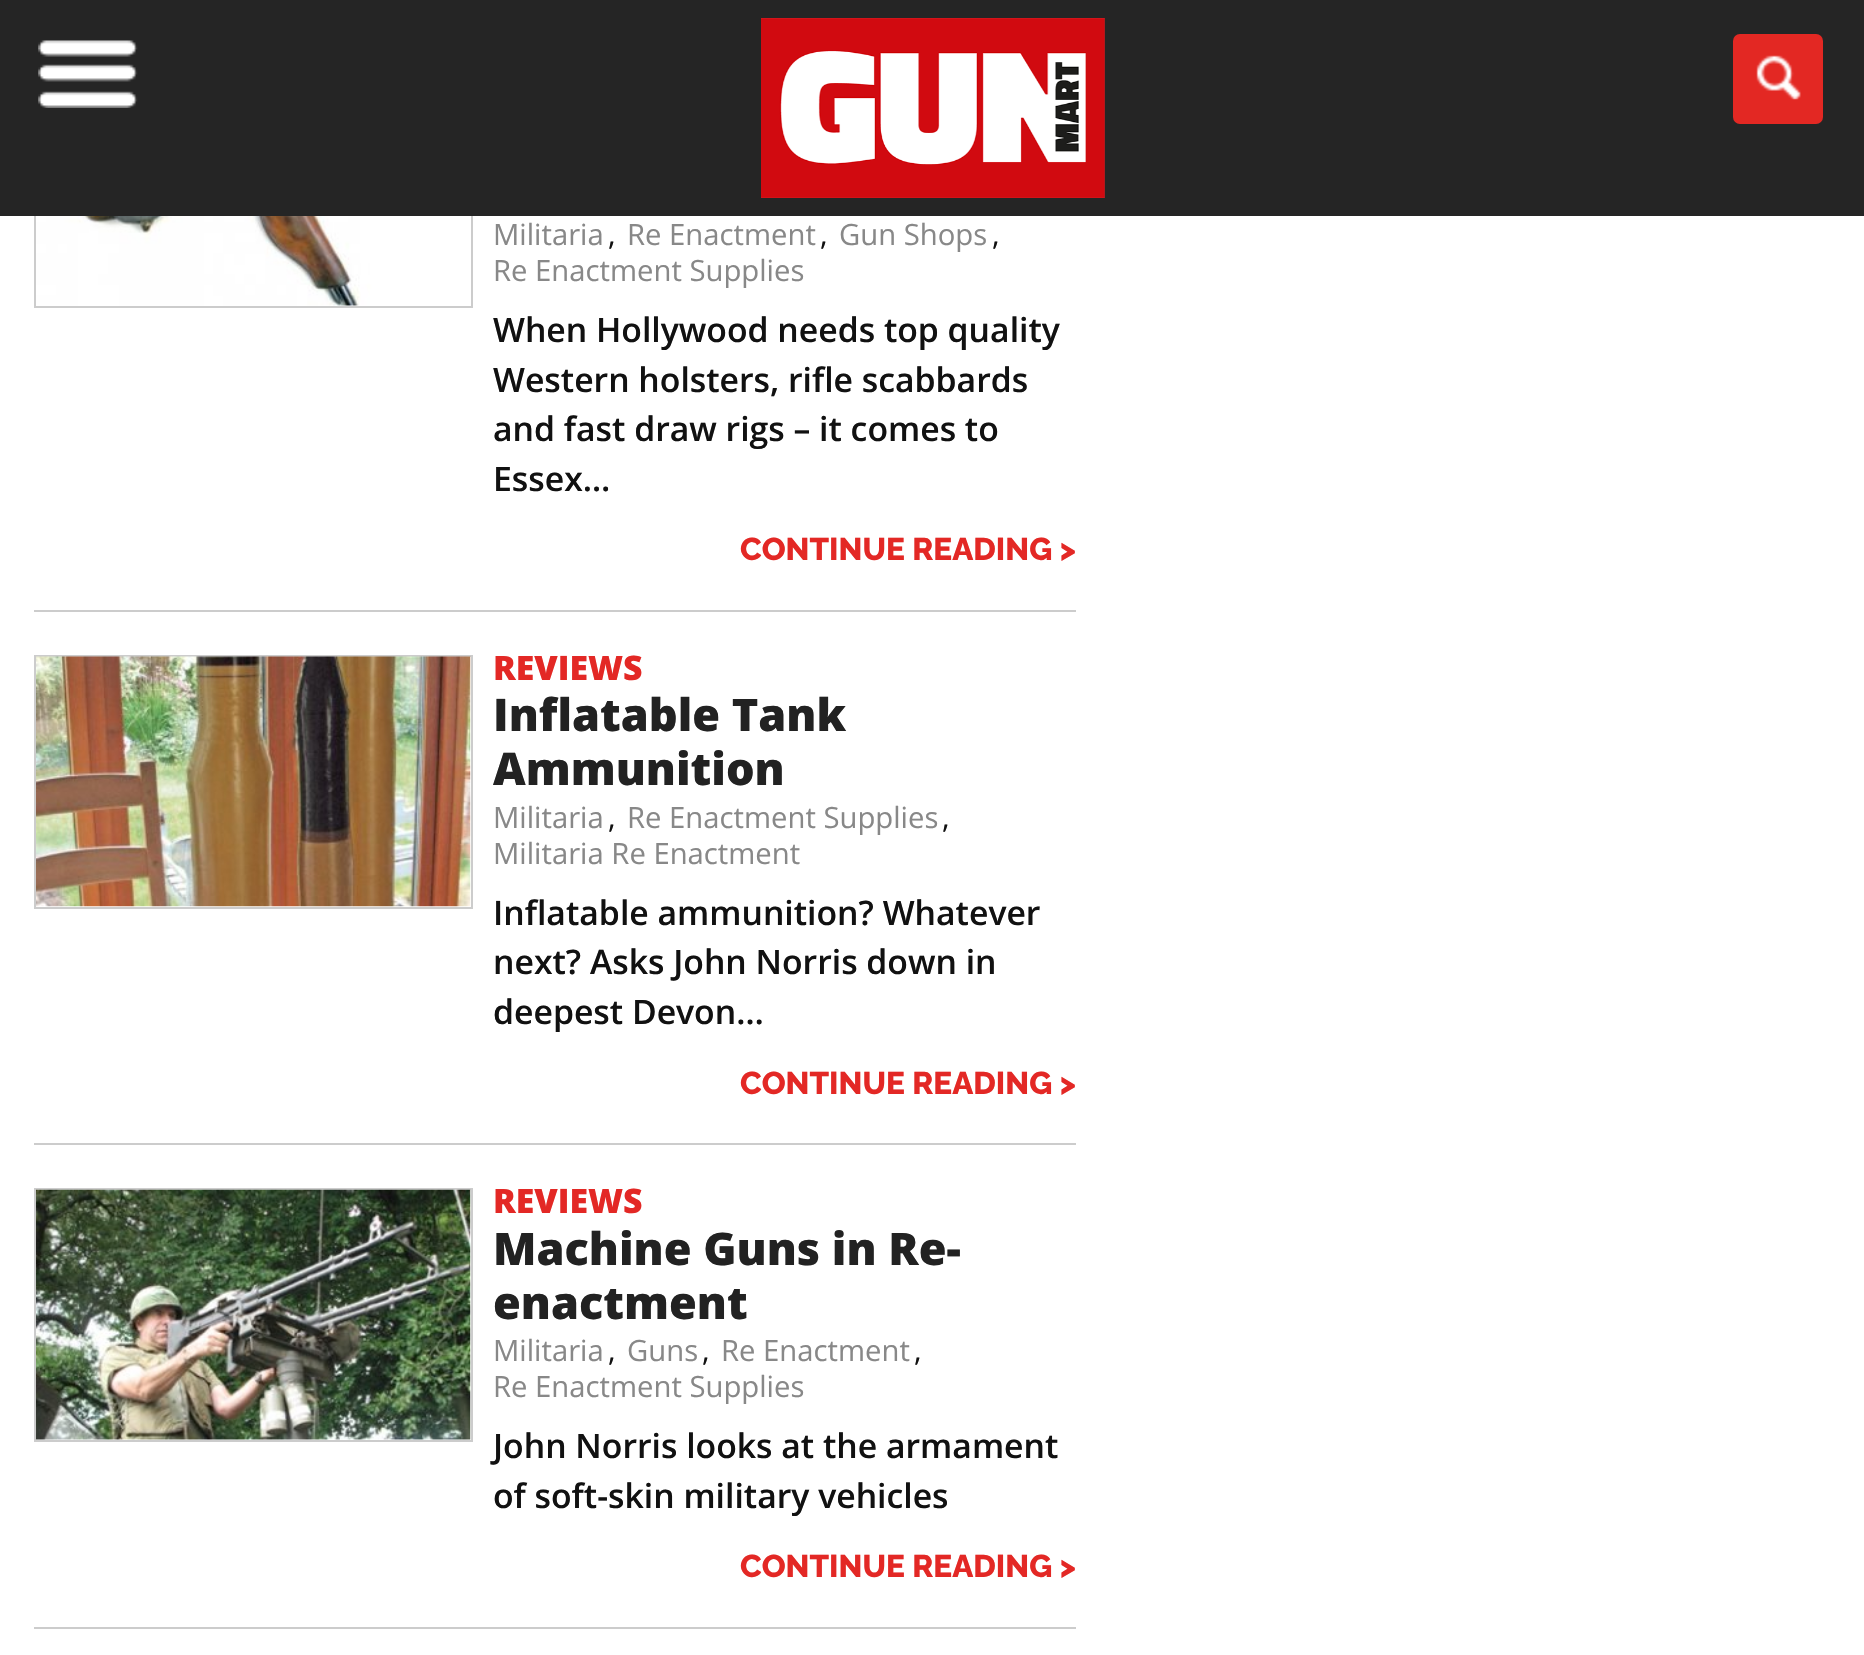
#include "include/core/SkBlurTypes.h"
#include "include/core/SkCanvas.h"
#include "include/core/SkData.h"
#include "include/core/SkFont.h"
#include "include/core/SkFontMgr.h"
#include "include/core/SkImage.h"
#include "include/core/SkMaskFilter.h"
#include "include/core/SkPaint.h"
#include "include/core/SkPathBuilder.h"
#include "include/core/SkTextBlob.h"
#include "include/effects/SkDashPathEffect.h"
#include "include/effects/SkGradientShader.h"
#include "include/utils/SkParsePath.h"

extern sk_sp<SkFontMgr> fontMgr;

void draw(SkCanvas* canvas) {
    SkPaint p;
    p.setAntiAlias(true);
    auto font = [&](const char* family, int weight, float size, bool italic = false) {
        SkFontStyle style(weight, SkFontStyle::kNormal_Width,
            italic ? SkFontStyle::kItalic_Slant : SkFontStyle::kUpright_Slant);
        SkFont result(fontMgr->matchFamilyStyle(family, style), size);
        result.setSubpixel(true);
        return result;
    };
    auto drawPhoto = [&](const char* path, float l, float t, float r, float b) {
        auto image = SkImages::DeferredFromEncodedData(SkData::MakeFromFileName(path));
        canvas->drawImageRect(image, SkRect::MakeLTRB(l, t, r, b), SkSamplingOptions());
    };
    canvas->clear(0xFFFFFFFF);
    p.setStyle(SkPaint::kStroke_Style);
    p.setStrokeWidth(2);
    p.setColor(0xFFCCCCCC);
    canvas->drawRect(SkRect::MakeLTRB(35, 55, 472, 307), p);
    p.setStyle(SkPaint::kFill_Style);
    p.setColor(0xFF252525);
    canvas->drawRect(SkRect::MakeLTRB(0, 0, 1864, 216), p);
    drawPhoto("media/1.png", 38, 40, 138, 108);
    drawPhoto("media/2.png", 761, 18, 1105, 198);
    p.setColor(0xFFE32823);
    canvas->drawRoundRect(SkRect::MakeLTRB(1733, 34, 1823, 124), 7, 7, p);
    drawPhoto("media/3.png", 1756, 55, 1801, 100);
    p.setColor(0xFFCCCCCC);
    canvas->drawRect(SkRect::MakeLTRB(34, 610, 1076, 612), p);
    drawPhoto("media/4.png", 36, 216, 470, 306);
    auto font1 = font("Open Sans", 400, 29.25f);
    p.setColor(0xFF888888);
    canvas->drawString("Militaria", 493, 245, font1, p);
    p.setColor(0xFF111111);
    canvas->drawString(",", 608, 245, font1, p);
    p.setColor(0xFF888888);
    canvas->drawString("Re Enactment", 627, 245, font1, p);
    p.setColor(0xFF111111);
    canvas->drawString(",", 820, 245, font1, p);
    p.setColor(0xFF888888);
    canvas->drawString("Gun Shops", 839, 245, font1, p);
    p.setColor(0xFF111111);
    canvas->drawString(",", 992, 245, font1, p);
    p.setColor(0xFF888888);
    canvas->drawString("Re Enactment Supplies", 493, 281, font1, p);
    auto font2 = font("Open Sans", 600, 33.75f);
    p.setColor(0xFF111111);
    {
        const struct { const char* s; float x, y; } items[] = {
            {"When Hollywood needs top quality", 493, 342},
            {"Western holsters, rifle scabbards", 493, 392},
            {"and fast draw rigs – it comes to", 493, 441},
            {"Essex…", 493, 491},
        };
        for (auto [s, x, y] : items) {
            canvas->drawString(s, x, y, font2, p);
        }
    }
    auto font3 = font("Raleway", 800, 31.5f);
    p.setColor(0xFFE32825);
    canvas->drawString("CONTINUE READING >", 740, 560, font3, p);
    p.setColor(0xFFCCCCCC);
    canvas->drawRect(SkRect::MakeLTRB(34, 1143, 1076, 1145), p);
    p.setStyle(SkPaint::kStroke_Style);
    canvas->drawRect(SkRect::MakeLTRB(35, 656, 472, 908), p);
    drawPhoto("media/5.png", 36, 656, 471, 907);
    auto font4 = font("Open Sans", 800, 33.75f);
    p.setStyle(SkPaint::kFill_Style);
    p.setColor(0xFFE32825);
    canvas->drawString("REVIEWS", 493, 680, font4, p);
    auto font5 = font("Open Sans", 800, 45);
    p.setColor(0xFF222222);
    canvas->drawString("Inflatable Tank", 493, 731, font5, p);
    canvas->drawString("Ammunition", 493, 785, font5, p);
    p.setColor(0xFF888888);
    canvas->drawString("Militaria", 493, 828, font1, p);
    p.setColor(0xFF111111);
    canvas->drawString(",", 608, 828, font1, p);
    p.setColor(0xFF888888);
    canvas->drawString("Re Enactment Supplies", 627, 828, font1, p);
    p.setColor(0xFF111111);
    canvas->drawString(",", 942, 828, font1, p);
    p.setColor(0xFF888888);
    canvas->drawString("Militaria Re Enactment", 493, 864, font1, p);
    p.setColor(0xFF111111);
    {
        const struct { const char* s; float x, y; } items[] = {
            {"Inflatable ammunition? Whatever", 493, 925},
            {"next? Asks John Norris down in", 493, 974},
            {"deepest Devon…", 493, 1024},
        };
        for (auto [s, x, y] : items) {
            canvas->drawString(s, x, y, font2, p);
        }
    }
    p.setColor(0xFFE32825);
    canvas->drawString("CONTINUE READING >", 740, 1094, font3, p);
    p.setColor(0xFFCCCCCC);
    canvas->drawRect(SkRect::MakeLTRB(34, 1627, 1076, 1629), p);
    p.setStyle(SkPaint::kStroke_Style);
    canvas->drawRect(SkRect::MakeLTRB(35, 1189, 472, 1441), p);
    drawPhoto("media/6.png", 36, 1189, 471, 1440);
    p.setStyle(SkPaint::kFill_Style);
    p.setColor(0xFFE32825);
    canvas->drawString("REVIEWS", 493, 1213, font4, p);
    p.setColor(0xFF222222);
    canvas->drawString("Machine Guns in Re-", 493, 1265, font5, p);
    canvas->drawString("enactment", 493, 1319, font5, p);
    p.setColor(0xFF888888);
    canvas->drawString("Militaria", 493, 1361, font1, p);
    p.setColor(0xFF111111);
    canvas->drawString(",", 608, 1361, font1, p);
    p.setColor(0xFF888888);
    canvas->drawString("Guns", 627, 1361, font1, p);
    p.setColor(0xFF111111);
    canvas->drawString(",", 702, 1361, font1, p);
    p.setColor(0xFF888888);
    canvas->drawString("Re Enactment", 721, 1361, font1, p);
    p.setColor(0xFF111111);
    canvas->drawString(",", 914, 1361, font1, p);
    p.setColor(0xFF888888);
    canvas->drawString("Re Enactment Supplies", 493, 1397, font1, p);
    p.setColor(0xFF111111);
    canvas->drawString("John Norris looks at the armament", 493, 1458, font2, p);
    canvas->drawString("of soft-skin military vehicles", 493, 1508, font2, p);
    p.setColor(0xFFE32825);
    canvas->drawString("CONTINUE READING >", 740, 1577, font3, p);
}
